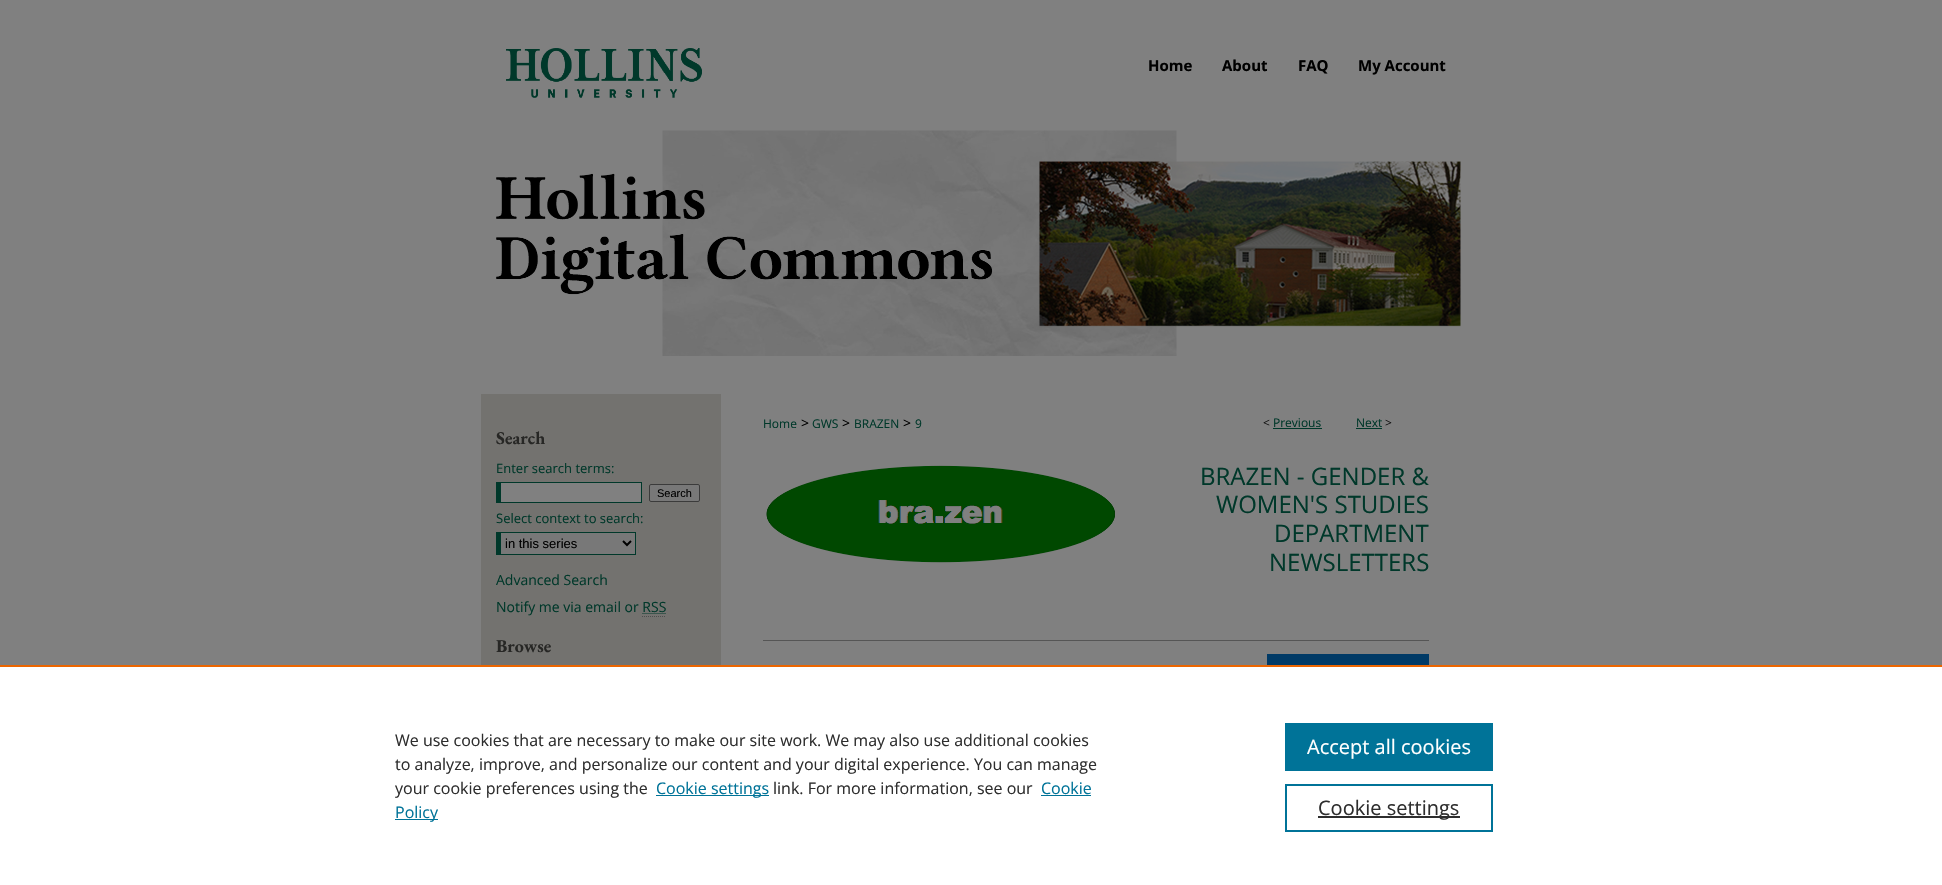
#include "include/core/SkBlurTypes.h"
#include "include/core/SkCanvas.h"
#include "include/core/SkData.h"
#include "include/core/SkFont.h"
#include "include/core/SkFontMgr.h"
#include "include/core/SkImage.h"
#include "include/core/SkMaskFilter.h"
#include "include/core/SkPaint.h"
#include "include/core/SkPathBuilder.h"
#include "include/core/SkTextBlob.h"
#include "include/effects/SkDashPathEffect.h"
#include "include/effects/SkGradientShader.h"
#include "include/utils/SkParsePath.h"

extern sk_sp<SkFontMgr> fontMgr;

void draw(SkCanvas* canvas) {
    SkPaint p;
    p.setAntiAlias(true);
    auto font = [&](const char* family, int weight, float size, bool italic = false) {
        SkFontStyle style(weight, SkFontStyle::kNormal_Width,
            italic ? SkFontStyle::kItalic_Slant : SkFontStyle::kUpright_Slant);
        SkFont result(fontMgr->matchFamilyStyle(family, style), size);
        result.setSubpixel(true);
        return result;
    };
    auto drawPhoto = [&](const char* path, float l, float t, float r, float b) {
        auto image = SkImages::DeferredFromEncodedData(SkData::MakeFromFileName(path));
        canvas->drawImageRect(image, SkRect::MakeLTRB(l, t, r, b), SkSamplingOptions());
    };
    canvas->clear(0xFF808080);
    drawPhoto("media/1.png", 506, 48, 702, 98);
    auto font1 = font("Open Sans", 700, 15);
    p.setColor(0xFF000000);
    {
        const struct { const char* s; float x, y; } items[] = {
            {"Home", 1148, 71},
            {"About", 1222, 71},
            {"FAQ", 1298, 71},
            {"My Account", 1358, 71},
        };
        for (auto [s, x, y] : items) {
            canvas->drawString(s, x, y, font1, p);
        }
    }
    drawPhoto("media/2.png", 496, 130, 1461, 356);
    p.setColor(0xFF73726F);
    canvas->drawRect(SkRect::MakeLTRB(481, 394, 721, 665), p);
    auto font2 = font("EB Garamond", 700, 18);
    p.setColor(0xFF272725);
    canvas->drawString("Search", 496, 444, font2, p);
    auto font3 = font("Open Sans", 400, 13);
    p.setColor(0xFF00382A);
    canvas->drawString("Enter search terms:", 496, 473, font3, p);
    {
        const struct { float l, t, r, b; SkColor color; } items[] = {
            {501, 483, 641, 502, 0xFF808080},
            {496, 482, 642, 483, 0xFF00382A},
            {641, 482, 642, 503, 0xFF00382A},
            {496, 502, 642, 503, 0xFF00382A},
            {496, 482, 501, 503, 0xFF00382A},
        };
        for (auto [l, t, r, b, color] : items) {
            p.setColor(color);
            canvas->drawRect(SkRect::MakeLTRB(l, t, r, b), p);
        }
    }
    p.setColor(0xFF787878);
    canvas->drawRoundRect(SkRect::MakeLTRB(649.5f, 484.5f, 699.5f, 501.5f), 1.5f, 1.5f, p);
    p.setStyle(SkPaint::kStroke_Style);
    p.setStrokeWidth(1);
    p.setColor(0xFF3B3B3B);
    canvas->drawRoundRect(SkRect::MakeLTRB(649.5f, 484.5f, 699.5f, 501.5f), 1.5f, 1.5f, p);
    auto font4 = font("Liberation Sans", 400, 11);
    p.setStyle(SkPaint::kFill_Style);
    p.setColor(0xFF000000);
    canvas->drawString("Search", 657, 497, font4, p);
    p.setColor(0xFF00382A);
    canvas->drawString("Select context to search:", 496, 523, font3, p);
    {
        const struct { float l, t, r, b; SkColor color; } items[] = {
            {501, 533, 635, 554, 0xFF787878},
            {496, 532, 636, 533, 0xFF00382A},
            {635, 532, 636, 555, 0xFF00382A},
            {496, 554, 636, 555, 0xFF00382A},
            {496, 532, 501, 555, 0xFF00382A},
        };
        for (auto [l, t, r, b, color] : items) {
            p.setColor(color);
            canvas->drawRect(SkRect::MakeLTRB(l, t, r, b), p);
        }
    }
    p.setStyle(SkPaint::kStroke_Style);
    p.setStrokeWidth(2);
    p.setColor(0xFF000000);
    canvas->drawPath(SkPathBuilder().moveTo(623, 541).lineTo(627, 545).lineTo(631, 541).detach(), p);
    auto font5 = font("Liberation Sans", 400, 13);
    p.setStyle(SkPaint::kFill_Style);
    canvas->drawString("in this series", 505, 548, font5, p);
    auto font6 = font("Open Sans", 400, 14);
    p.setColor(0xFF00382A);
    canvas->drawString("Advanced Search", 496, 585, font6, p);
    canvas->drawString("Notify me via email or RSS", 496, 612, font6, p);
    p.setStyle(SkPaint::kStroke_Style);
    p.setStrokeWidth(1);
    p.setPathEffect(SkDashPathEffect::Make({{1, 1}}, 0));
    canvas->drawPath(SkPathBuilder().moveTo(642.5f, 613.5f).lineTo(666.5f, 613.5f).detach(), p);
    p.setPathEffect(nullptr);
    p.setColor(0xFF4D4D4D);
    p.setPathEffect(SkDashPathEffect::Make({{1, 1}}, 0));
    canvas->drawPath(SkPathBuilder().moveTo(642, 616.5f).lineTo(666, 616.5f).detach(), p);
    p.setPathEffect(nullptr);
    p.setStyle(SkPaint::kFill_Style);
    p.setColor(0xFF272725);
    canvas->drawString("Browse", 496, 652, font2, p);
    auto font7 = font("Open Sans", 400, 12);
    p.setColor(0xFF00382A);
    canvas->drawString("Home", 763, 428, font7, p);
    p.setColor(0xFF000000);
    canvas->drawString(">", 801, 428, font6, p);
    p.setColor(0xFF00382A);
    canvas->drawString("GWS", 812, 428, font7, p);
    p.setColor(0xFF000000);
    canvas->drawString(">", 842, 428, font6, p);
    p.setColor(0xFF00382A);
    canvas->drawString("BRAZEN", 854, 428, font7, p);
    p.setColor(0xFF000000);
    canvas->drawString(">", 903, 428, font6, p);
    p.setColor(0xFF00382A);
    canvas->drawString("9", 915, 428, font7, p);
    p.setColor(0xFF111111);
    canvas->drawString("<", 1263, 427, font7, p);
    p.setColor(0xFF00382A);
    canvas->drawString("Previous", 1273, 427, font7, p);
    canvas->drawRect(SkRect::MakeLTRB(1273, 428, 1322, 429), p);
    canvas->drawString("Next", 1356, 427, font7, p);
    canvas->drawRect(SkRect::MakeLTRB(1356, 428, 1382, 429), p);
    p.setColor(0xFF111111);
    canvas->drawString(">", 1385, 427, font7, p);
    drawPhoto("media/3.png", 766, 465, 1115, 563);
    auto font8 = font("Open Sans", 400, 24);
    p.setColor(0xFF00382A);
    {
        const struct { const char* s; float x, y; } items[] = {
            {"BRAZEN - GENDER &", 1200, 485},
            {"WOMEN'S STUDIES", 1216, 513},
            {"DEPARTMENT", 1274, 542},
            {"NEWSLETTERS", 1269, 571},
        };
        for (auto [s, x, y] : items) {
            canvas->drawString(s, x, y, font8, p);
        }
    }
    {
        const struct { float l, t, r, b; SkColor color; } items[] = {
            {763, 640, 1429, 641, 0xFF555555},
            {1267, 654, 1429, 665, 0xFF003A66},
            {0, 667, 1942, 885, 0xFFFFFFFF},
            {0, 665, 1942, 667, 0xFFEB6500},
        };
        for (auto [l, t, r, b, color] : items) {
            p.setColor(color);
            canvas->drawRect(SkRect::MakeLTRB(l, t, r, b), p);
        }
    }
    auto font9 = font("Open Sans", 400, 16);
    p.setColor(0xFF2E2E2E);
    {
        const struct { const char* s; float x, y; } items[] = {
            {"We use cookies that are necessary to make our site work. We may also use additional cookies", 395, 746},
            {"to analyze, improve, and personalize our content and your digital experience. You can manage", 395, 770},
            {"your cookie preferences using the", 395, 794},
        };
        for (auto [s, x, y] : items) {
            canvas->drawString(s, x, y, font9, p);
        }
    }
    p.setColor(0xFF007398);
    canvas->drawRect(SkRect::MakeLTRB(656, 795, 769, 796), p);
    canvas->drawString("Cookie settings", 656, 794, font9, p);
    p.setColor(0xFF2E2E2E);
    canvas->drawString("link. For more information, see our", 773, 794, font9, p);
    p.setColor(0xFF007398);
    canvas->drawString("Cookie", 1041, 794, font9, p);
    canvas->drawRect(SkRect::MakeLTRB(1041, 795, 1091, 796), p);
    canvas->drawRect(SkRect::MakeLTRB(395, 819, 438, 820), p);
    canvas->drawString("Policy", 395, 818, font9, p);
    canvas->drawRect(SkRect::MakeLTRB(1285, 723, 1493, 771), p);
    auto font10 = font("Open Sans", 400, 20);
    p.setColor(0xFFFFFFFF);
    canvas->drawString("Accept all cookies", 1307, 754, font10, p);
    p.setStyle(SkPaint::kStroke_Style);
    p.setStrokeWidth(2);
    p.setColor(0xFF007398);
    canvas->drawRect(SkRect::MakeLTRB(1286, 785, 1492, 831), p);
    p.setStyle(SkPaint::kFill_Style);
    p.setColor(0xFF2E2E2E);
    canvas->drawRect(SkRect::MakeLTRB(1318, 816, 1460, 818), p);
    canvas->drawString("Cookie settings", 1318, 815, font10, p);
}
